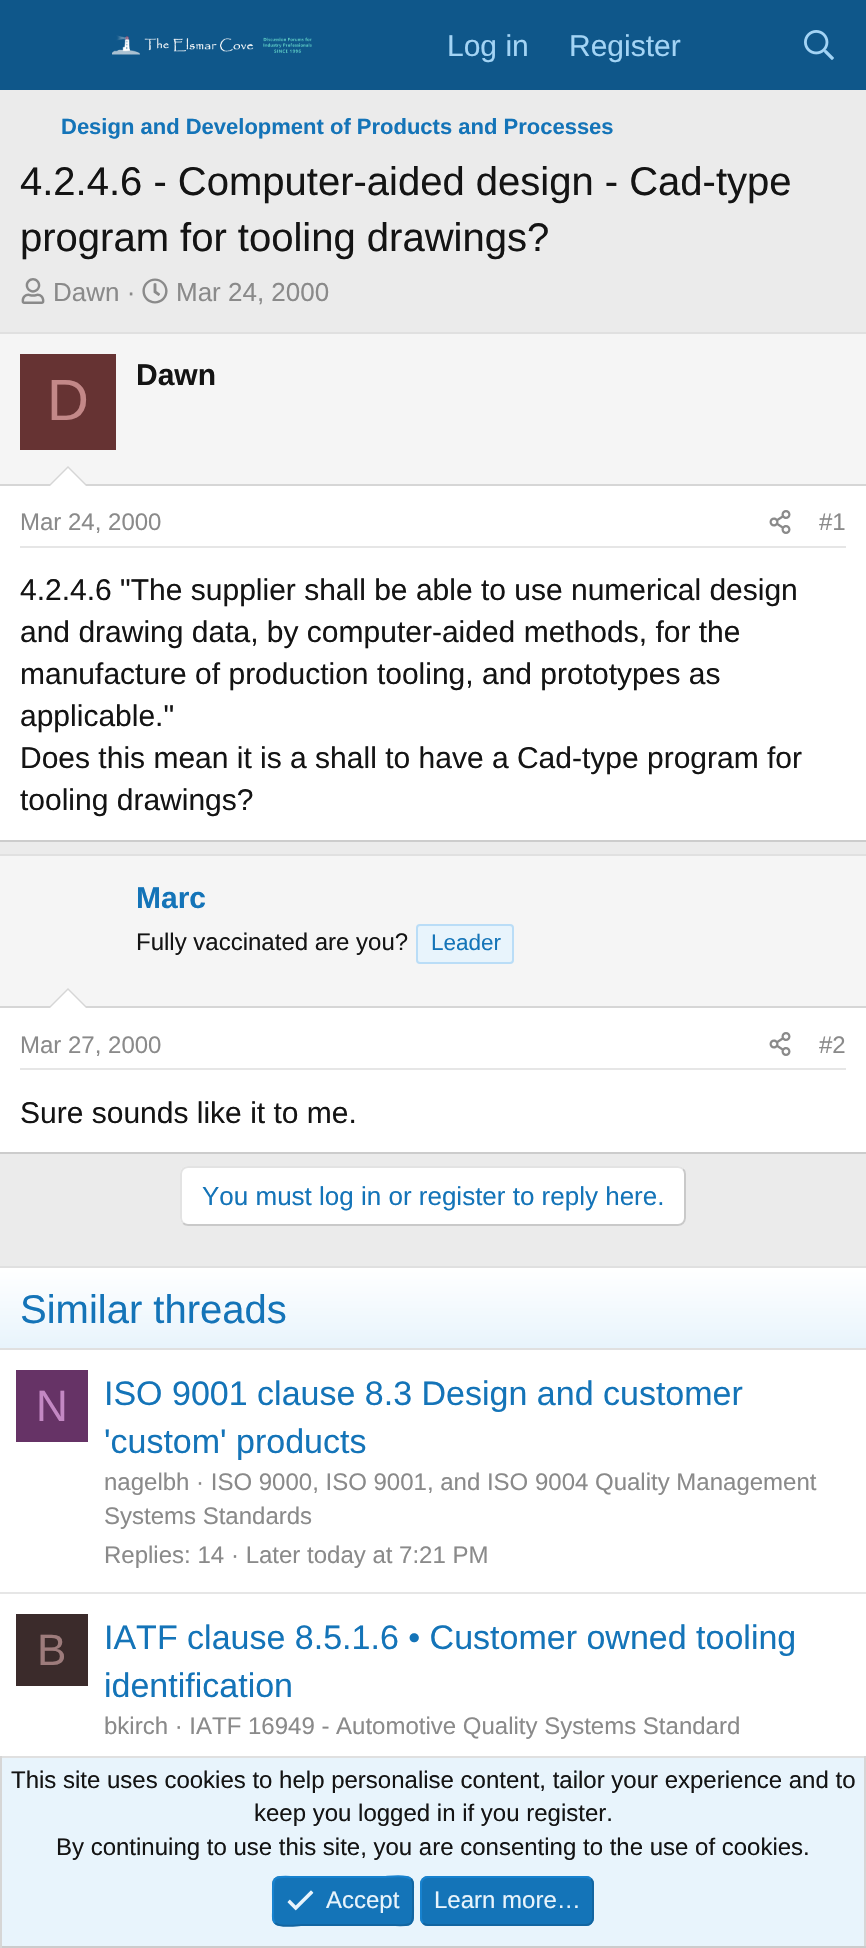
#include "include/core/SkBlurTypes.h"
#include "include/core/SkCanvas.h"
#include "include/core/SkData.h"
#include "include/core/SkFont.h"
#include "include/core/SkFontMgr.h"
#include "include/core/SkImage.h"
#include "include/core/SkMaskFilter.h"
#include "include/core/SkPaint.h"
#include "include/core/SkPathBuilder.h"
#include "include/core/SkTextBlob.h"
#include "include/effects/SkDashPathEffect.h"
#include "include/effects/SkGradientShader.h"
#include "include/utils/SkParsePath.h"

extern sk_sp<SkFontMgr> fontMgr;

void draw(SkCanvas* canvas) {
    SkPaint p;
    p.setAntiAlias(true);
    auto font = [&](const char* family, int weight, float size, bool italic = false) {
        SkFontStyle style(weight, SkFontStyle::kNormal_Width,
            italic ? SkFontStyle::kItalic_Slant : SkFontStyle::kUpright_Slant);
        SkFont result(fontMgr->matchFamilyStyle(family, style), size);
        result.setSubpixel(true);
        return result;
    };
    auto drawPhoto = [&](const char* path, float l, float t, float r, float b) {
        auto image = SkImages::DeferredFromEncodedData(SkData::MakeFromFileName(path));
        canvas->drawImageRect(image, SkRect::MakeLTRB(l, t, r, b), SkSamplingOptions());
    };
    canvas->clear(0xFFEBEBEB);
    p.setColor(0xFF0F578A);
    canvas->drawRect(SkRect::MakeLTRB(0, 0, 866, 90), p);
    drawPhoto("media/1.png", 112, 35, 312, 55);
    auto font1 = font("Liberation Sans", 400, 30);
    p.setColor(0xFFA3D4F5);
    canvas->drawString("Log in", 447, 56, font1, p);
    canvas->drawString("Register", 569, 56, font1, p);
    drawPhoto("media/2.png", 804, 30, 834, 60);
    auto font2 = font("Liberation Sans", 700, 22);
    p.setColor(0xFF1474B8);
    canvas->drawString("Design and Development of Products and Processes", 61, 134, font2, p);
    auto font3 = font("Liberation Sans", 400, 40);
    p.setColor(0xFF141414);
    canvas->drawString("4.2.4.6 - Computer-aided design - Cad-type", 20, 195, font3, p);
    canvas->drawString("program for tooling drawings?", 20, 251, font3, p);
    drawPhoto("media/3.png", 21, 278, 45, 304);
    auto font4 = font("Liberation Sans", 400, 26);
    p.setColor(0xFF8A8A8A);
    canvas->drawString("Dawn ·", 53, 301, font4, p);
    drawPhoto("media/4.png", 142, 278, 168, 304);
    canvas->drawString("Mar 24, 2000", 176, 301, font4, p);
    {
        const struct { float l, t, r, b; SkColor color; } items[] = {
            {0, 486, 866, 840, 0xFFFFFFFF},
            {0, 332, 866, 334, 0xFFE0E0E0},
            {0, 840, 866, 842, 0xFFCCCCCC},
            {0, 334, 866, 484, 0xFFF5F5F5},
            {0, 484, 866, 486, 0xFFD6D6D6},
        };
        for (auto [l, t, r, b, color] : items) {
            p.setColor(color);
            canvas->drawRect(SkRect::MakeLTRB(l, t, r, b), p);
        }
    }
    auto font5 = font("Liberation Sans", 700, 30);
    p.setColor(0xFF141414);
    canvas->drawString("Dawn", 136, 385, font5, p);
    p.setColor(0xFF663333);
    canvas->drawRect(SkRect::MakeLTRB(20, 354, 116, 450), p);
    auto font6 = font("Liberation Sans", 400, 58);
    p.setColor(0xFFC38888);
    canvas->drawString("D", 47, 420, font6, p);
    p.setColor(0xFFD6D6D6);
    canvas->drawPath(SkPathBuilder().moveTo(88, 486).lineTo(48, 486).lineTo(68, 466).close().detach(), p);
    p.setColor(0xFFFFFFFF);
    canvas->drawPath(SkPathBuilder().moveTo(86, 486).lineTo(50, 486).lineTo(68, 468).close().detach(), p);
    p.setColor(0xFFE6E6E6);
    canvas->drawRect(SkRect::MakeLTRB(20, 546, 846, 548), p);
    auto font7 = font("Liberation Sans", 400, 24);
    p.setColor(0xFF8A8A8A);
    canvas->drawString("Mar 24, 2000", 20, 530, font7, p);
    drawPhoto("media/5.png", 769, 510, 791, 534);
    canvas->drawString("#1", 819, 530, font7, p);
    p.setColor(0xFF141414);
    {
        const struct { const char* s; float x, y; } items[] = {
            {"4.2.4.6 \"The supplier shall be able to use numerical design", 20, 600},
            {"and drawing data, by computer-aided methods, for the", 20, 642},
            {"manufacture of production tooling, and prototypes as", 20, 684},
            {"applicable.\"", 20, 726},
            {"Does this mean it is a shall to have a Cad-type program for", 20, 768},
            {"tooling drawings?", 20, 810},
        };
        for (auto [s, x, y] : items) {
            canvas->drawString(s, x, y, font1, p);
        }
    }
    {
        const struct { float l, t, r, b; SkColor color; } items[] = {
            {0, 1008, 866, 1152, 0xFFFFFFFF},
            {0, 854, 866, 856, 0xFFE0E0E0},
            {0, 1152, 866, 1154, 0xFFCCCCCC},
            {0, 856, 866, 1006, 0xFFF5F5F5},
            {0, 1006, 866, 1008, 0xFFD6D6D6},
        };
        for (auto [l, t, r, b, color] : items) {
            p.setColor(color);
            canvas->drawRect(SkRect::MakeLTRB(l, t, r, b), p);
        }
    }
    p.setColor(0xFF1474B8);
    canvas->drawString("Marc", 136, 908, font5, p);
    p.setColor(0xFF141414);
    canvas->drawString("Fully vaccinated are you?", 136, 950, font7, p);
    p.setColor(0xFFE8F4FC);
    canvas->drawRoundRect(SkRect::MakeLTRB(417, 925, 513, 963), 3, 3, p);
    p.setStyle(SkPaint::kStroke_Style);
    p.setStrokeWidth(2);
    p.setColor(0xFFBADDF7);
    canvas->drawRoundRect(SkRect::MakeLTRB(417, 925, 513, 963), 3, 3, p);
    auto font8 = font("Liberation Sans", 400, 22.5f);
    p.setStyle(SkPaint::kFill_Style);
    p.setColor(0xFF1474B8);
    canvas->drawString("Leader", 431, 950, font8, p);
    p.setColor(0xFFD6D6D6);
    canvas->drawPath(SkPathBuilder().moveTo(88, 1008).lineTo(48, 1008).lineTo(68, 988).close().detach(), p);
    p.setColor(0xFFFFFFFF);
    canvas->drawPath(SkPathBuilder().moveTo(86, 1008).lineTo(50, 1008).lineTo(68, 990).close().detach(), p);
    p.setColor(0xFFE6E6E6);
    canvas->drawRect(SkRect::MakeLTRB(20, 1068, 846, 1070), p);
    p.setColor(0xFF8A8A8A);
    canvas->drawString("Mar 27, 2000", 20, 1053, font7, p);
    drawPhoto("media/5.png", 769, 1032, 791, 1056);
    canvas->drawString("#2", 819, 1053, font7, p);
    p.setColor(0xFF141414);
    canvas->drawString("Sure sounds like it to me.", 20, 1123, font1, p);
    p.setColor(0xFFFFFFFF);
    canvas->drawRoundRect(SkRect::MakeLTRB(180, 1166, 686, 1226), 8, 8, p);
    p.setStyle(SkPaint::kStroke_Style);
    p.setColor(0xFFC9C9C9);
    canvas->drawPath(SkPathBuilder().moveTo(683, 1169).cubicTo(684.5f, 1170.5f, 685, 1172, 685, 1174).lineTo(685, 1218).cubicTo(685, 1220, 684.5f, 1221.5f, 683, 1223).cubicTo(681.5f, 1224.5f, 680, 1225, 678, 1225).lineTo(188, 1225).cubicTo(186, 1225, 184.5f, 1224.5f, 183, 1223).detach(), p);
    p.setColor(0xFFE3E3E3);
    canvas->drawPath(SkPathBuilder().moveTo(183, 1223).cubicTo(181.5f, 1221.5f, 181, 1220, 181, 1218).lineTo(181, 1174).cubicTo(181, 1172, 181.5f, 1170.5f, 183, 1169).cubicTo(184.5f, 1167.5f, 186, 1167, 188, 1167).lineTo(678, 1167).cubicTo(680, 1167, 681.5f, 1167.5f, 683, 1169).detach(), p);
    p.setStyle(SkPaint::kFill_Style);
    p.setColor(0xFF1474B8);
    canvas->drawString("You must log in or register to reply here.", 202, 1205, font4, p);
    p.setColor(0xFFFFFFFF);
    canvas->drawRect(SkRect::MakeLTRB(0, 1350, 866, 1756), p);
    p.setColor(0xFFE0E0E0);
    canvas->drawRect(SkRect::MakeLTRB(0, 1266, 866, 1268), p);
    {
        const SkColor colors[] = {0xFFE8F4FC, 0xFFFFFFFF};
        const float stops[] = {0, 1};
        const SkPoint ends[] = {{433, 1348}, {433, 1268}};
        p.setShader(SkGradientShader::MakeLinear(ends, colors, stops, 2, SkTileMode::kClamp));
        p.setAlpha(255);
    }
    canvas->drawRect(SkRect::MakeLTRB(0, 1268, 866, 1348), p);
    p.setShader(nullptr);
    p.setColor(0xFFE0E0E0);
    canvas->drawRect(SkRect::MakeLTRB(0, 1348, 866, 1350), p);
    p.setColor(0xFF1474B8);
    canvas->drawString("Similar threads", 20, 1323, font3, p);
    p.setColor(0xFF663366);
    canvas->drawRect(SkRect::MakeLTRB(16, 1370, 88, 1442), p);
    auto font9 = font("Liberation Sans", 400, 44);
    p.setColor(0xFFC388C3);
    canvas->drawString("N", 36, 1421, font9, p);
    auto font10 = font("Liberation Sans", 400, 34);
    p.setColor(0xFF1474B8);
    canvas->drawString("ISO 9001 clause 8.3 Design and customer", 104, 1405, font10, p);
    canvas->drawString("'custom' products", 104, 1453, font10, p);
    p.setColor(0xFF8A8A8A);
    {
        const struct { const char* s; float x, y; } items[] = {
            {"nagelbh · ISO 9000, ISO 9001, and ISO 9004 Quality Management", 104, 1490},
            {"Systems Standards", 104, 1524},
            {"Replies: 14", 104, 1563},
            {"· Later today at 7:21 PM", 231, 1563},
        };
        for (auto [s, x, y] : items) {
            canvas->drawString(s, x, y, font7, p);
        }
    }
    p.setColor(0xFFE6E6E6);
    canvas->drawRect(SkRect::MakeLTRB(0, 1592, 866, 1594), p);
    p.setColor(0xFF3B2B2B);
    canvas->drawRect(SkRect::MakeLTRB(16, 1614, 88, 1686), p);
    p.setColor(0xFF9D7B7B);
    canvas->drawString("B", 37, 1665, font9, p);
    p.setColor(0xFF1474B8);
    canvas->drawString("IATF clause 8.5.1.6 • Customer owned tooling", 104, 1649, font10, p);
    canvas->drawString("identification", 104, 1697, font10, p);
    p.setColor(0xFF8A8A8A);
    canvas->drawString("bkirch · IATF 16949 - Automotive Quality Systems Standard", 104, 1734, font7, p);
    {
        const struct { float l, t, r, b; SkColor color; } items[] = {
            {2, 1758, 864, 1946, 0xFFE8F4FC},
            {0, 1756, 866, 1758, 0xFFE0E0E0},
            {864, 1756, 866, 1948, 0xFFD6D6D6},
            {0, 1946, 866, 1948, 0xFFCCCCCC},
            {0, 1756, 2, 1948, 0xFFD6D6D6},
        };
        for (auto [l, t, r, b, color] : items) {
            p.setColor(color);
            canvas->drawRect(SkRect::MakeLTRB(l, t, r, b), p);
        }
    }
    p.setColor(0xFF141414);
    {
        const struct { const char* s; float x, y; } items[] = {
            {"This site uses cookies to help personalise content, tailor your experience and to", 11, 1788},
            {"keep you logged in if you register.", 254, 1821},
            {"By continuing to use this site, you are consenting to the use of cookies.", 56, 1855},
        };
        for (auto [s, x, y] : items) {
            canvas->drawString(s, x, y, font7, p);
        }
    }
    p.setColor(0xFF1474B8);
    canvas->drawRoundRect(SkRect::MakeLTRB(272, 1876, 414, 1926), 8, 8, p);
    p.setStyle(SkPaint::kStroke_Style);
    p.setColor(0xFF1265A1);
    canvas->drawPath(SkPathBuilder().moveTo(411, 1879).cubicTo(414, 1882, 413, 1886, 413, 1889.5f).lineTo(413, 1901).cubicTo(413, 1929, 415.5f, 1925, 385, 1925).lineTo(301, 1925).cubicTo(299, 1925, 280, 1928, 275, 1923).detach(), p);
    p.setColor(0xFF1782CF);
    canvas->drawPath(SkPathBuilder().moveTo(275, 1923).cubicTo(272, 1920, 273, 1916, 273, 1912.5f).lineTo(273, 1901).cubicTo(273, 1873, 270.5f, 1877, 301, 1877).lineTo(385, 1877).cubicTo(387, 1877, 406, 1874, 411, 1879).detach(), p);
    drawPhoto("media/6.png", 287, 1890, 314, 1911);
    p.setStyle(SkPaint::kFill_Style);
    p.setColor(0xFFE8F4FC);
    canvas->drawString("Accept", 326, 1908, font7, p);
    p.setColor(0xFF1474B8);
    canvas->drawRoundRect(SkRect::MakeLTRB(420, 1876, 594, 1926), 8, 8, p);
    p.setStyle(SkPaint::kStroke_Style);
    p.setColor(0xFF1265A1);
    canvas->drawPath(SkPathBuilder().moveTo(591, 1879).cubicTo(592.5f, 1880.5f, 593, 1882, 593, 1884).lineTo(593, 1918).cubicTo(593, 1920, 592.5f, 1921.5f, 591, 1923).cubicTo(589.5f, 1924.5f, 588, 1925, 586, 1925).lineTo(428, 1925).cubicTo(426, 1925, 424.5f, 1924.5f, 423, 1923).detach(), p);
    p.setColor(0xFF1782CF);
    canvas->drawPath(SkPathBuilder().moveTo(423, 1923).cubicTo(421.5f, 1921.5f, 421, 1920, 421, 1918).lineTo(421, 1884).cubicTo(421, 1882, 421.5f, 1880.5f, 423, 1879).cubicTo(424.5f, 1877.5f, 426, 1877, 428, 1877).lineTo(586, 1877).cubicTo(588, 1877, 589.5f, 1877.5f, 591, 1879).detach(), p);
    p.setStyle(SkPaint::kFill_Style);
    p.setColor(0xFFE8F4FC);
    canvas->drawString("Learn more…", 434, 1908, font7, p);
}
